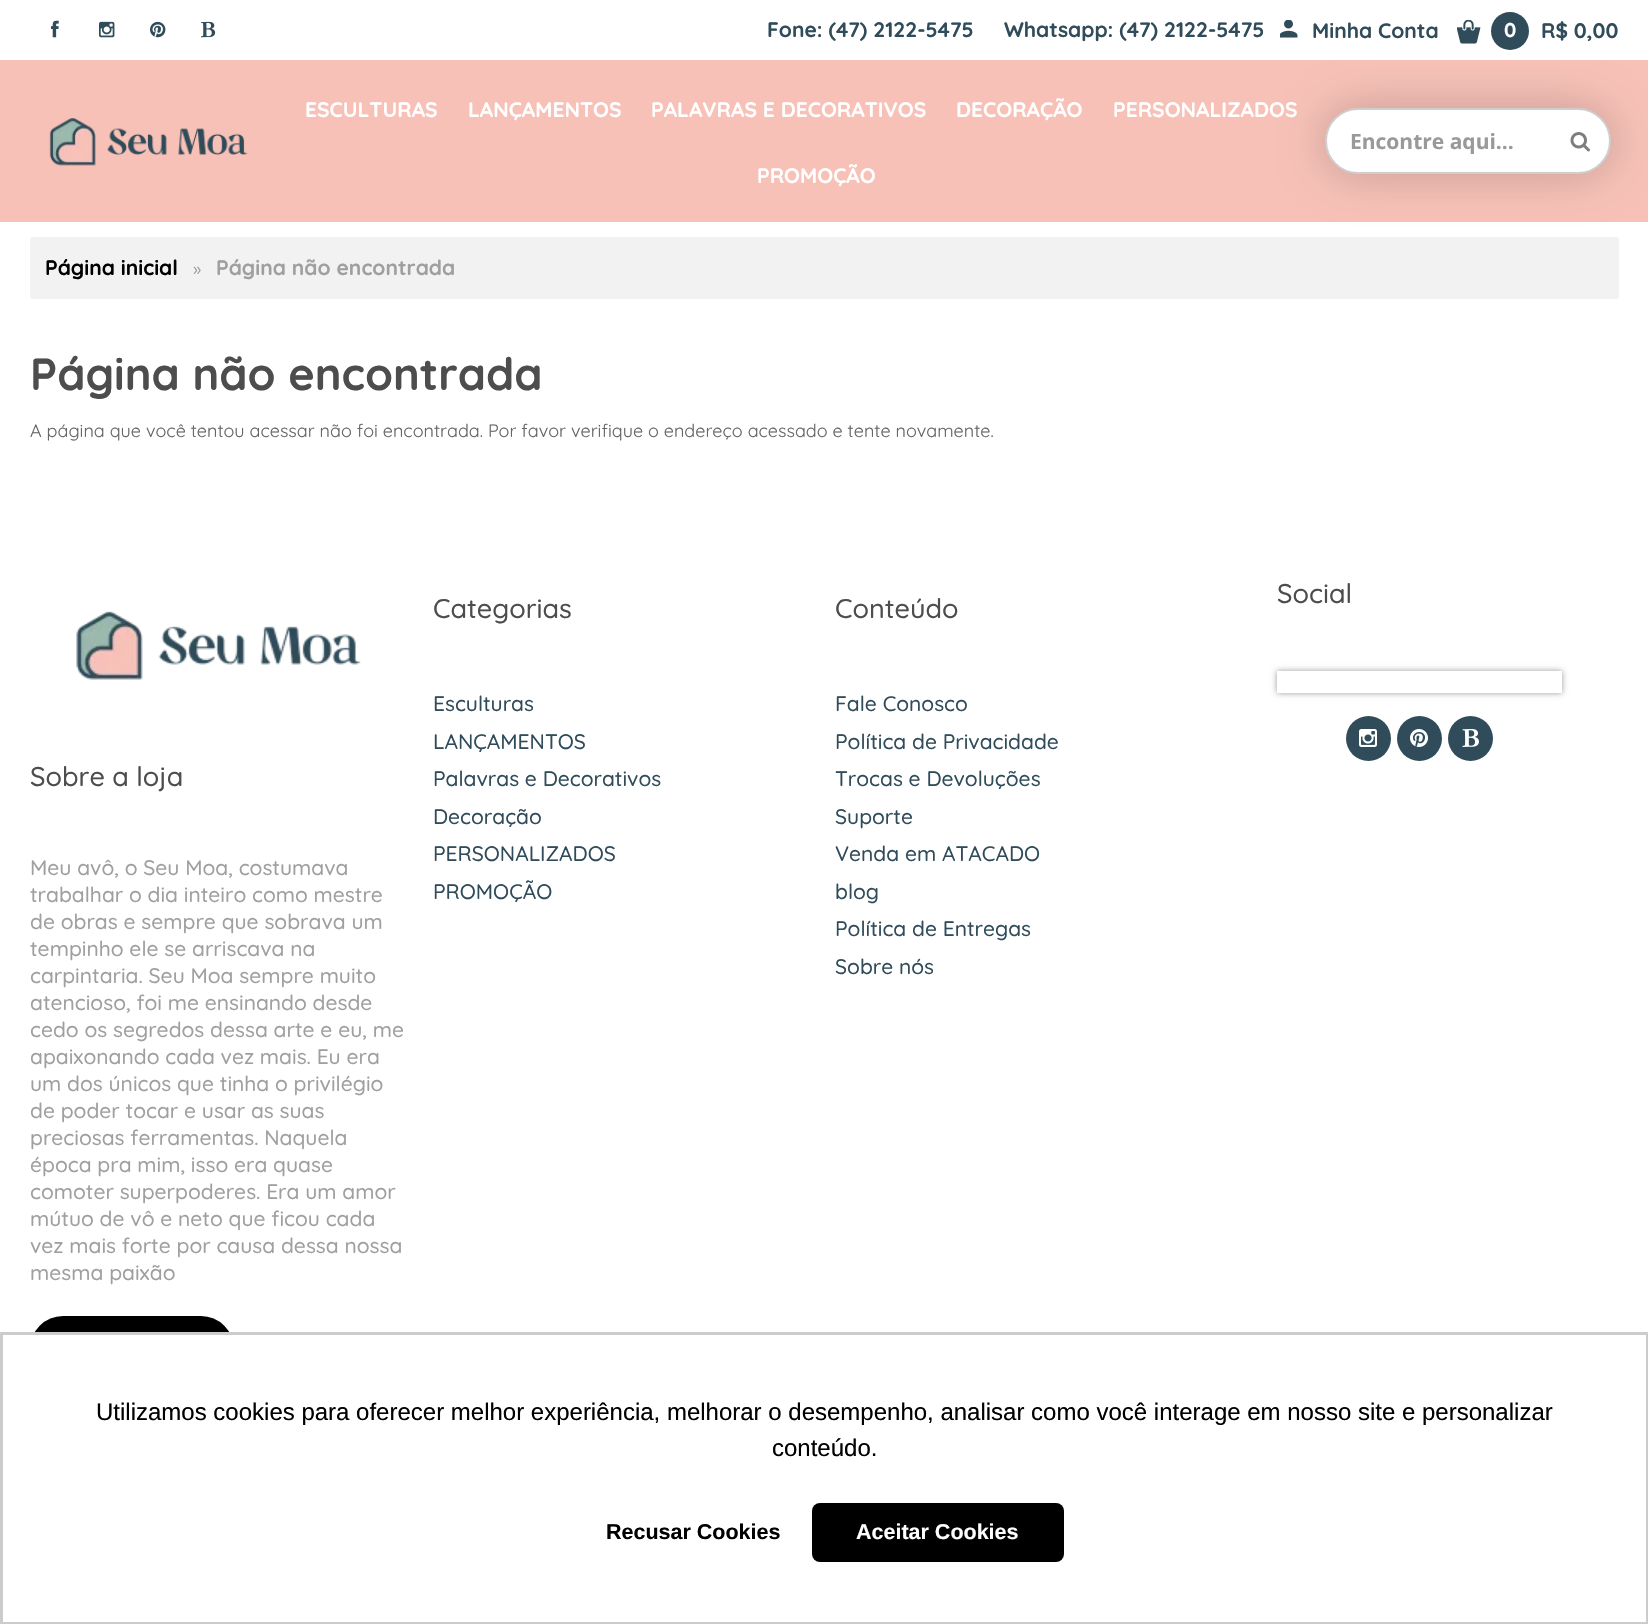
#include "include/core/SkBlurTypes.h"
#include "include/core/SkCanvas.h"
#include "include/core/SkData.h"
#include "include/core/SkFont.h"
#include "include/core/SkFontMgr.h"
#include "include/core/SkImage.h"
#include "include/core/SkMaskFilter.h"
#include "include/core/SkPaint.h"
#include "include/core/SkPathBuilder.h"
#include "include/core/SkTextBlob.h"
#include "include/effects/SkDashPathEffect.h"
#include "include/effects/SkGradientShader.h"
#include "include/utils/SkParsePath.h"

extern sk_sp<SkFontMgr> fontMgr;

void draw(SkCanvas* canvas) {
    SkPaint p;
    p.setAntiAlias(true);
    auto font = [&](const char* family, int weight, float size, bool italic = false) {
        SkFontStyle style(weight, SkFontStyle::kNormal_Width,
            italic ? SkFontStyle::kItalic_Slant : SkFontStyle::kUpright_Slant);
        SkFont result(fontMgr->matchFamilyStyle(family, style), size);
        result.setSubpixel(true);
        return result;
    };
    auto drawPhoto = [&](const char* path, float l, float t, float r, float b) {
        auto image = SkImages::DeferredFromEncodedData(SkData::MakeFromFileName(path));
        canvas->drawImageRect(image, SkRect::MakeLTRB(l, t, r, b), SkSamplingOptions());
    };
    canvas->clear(0xFFFFFFFF);
    drawPhoto("media/1.png", 51, 20, 59, 38);
    drawPhoto("media/2.png", 99, 21, 115, 38);
    drawPhoto("media/3.png", 150, 21, 166, 38);
    drawPhoto("media/4.png", 201, 21, 216, 38);
    auto font1 = font("Quicksand", 700, 21);
    p.setColor(0xFF304C5A);
    canvas->drawString("Fone: (47) 2122-5475", 767, 37, font1, p);
    canvas->drawString("Whatsapp: (47) 2122-5475", 1004, 37, font1, p);
    drawPhoto("media/5.png", 1280, 20, 1298, 38);
    canvas->drawString("Minha Conta", 1312, 38, font1, p);
    drawPhoto("media/6.png", 1457, 20, 1481, 44);
    canvas->drawCircle(1510, 31, 19, p);
    auto font2 = font("Quicksand", 700, 20);
    p.setColor(0xFFFFFFFF);
    canvas->drawString("0", 1504, 37, font2, p);
    p.setColor(0xFF304C5A);
    canvas->drawString("R$ 0,00", 1541, 38, font1, p);
    p.setColor(0xFFF7C1B7);
    canvas->drawRect(SkRect::MakeLTRB(0, 60, 1648, 222), p);
    drawPhoto("media/7.png", 49, 118, 248, 166);
    p.setColor(0xFFFFFFFF);
    {
        const struct { const char* s; float x, y; } items[] = {
            {"ESCULTURAS", 305, 117},
            {"LANÇAMENTOS", 468, 117},
            {"PALAVRAS E DECORATIVOS", 651, 117},
            {"DECORAÇÃO", 956, 117},
            {"PERSONALIZADOS", 1113, 117},
            {"PROMOÇÃO", 757, 183},
        };
        for (auto [s, x, y] : items) {
            canvas->drawString(s, x, y, font1, p);
        }
    }
    p.setColor(0xFFF2F2F2);
    canvas->drawRoundRect(SkRect::MakeLTRB(30, 237, 1619, 299), 3, 3, p);
    p.setColor(0x33000000);
    p.setMaskFilter(SkMaskFilter::MakeBlur(kNormal_SkBlurStyle, 22.5f));
    canvas->drawRoundRect(SkRect::MakeLTRB(1325, 108, 1611, 174), 33, 33, p);
    p.setMaskFilter(nullptr);
    p.setColor(0xFFFFFFFF);
    canvas->drawRoundRect(SkRect::MakeLTRB(1326, 109, 1610, 173), 32, 32, p);
    p.setStyle(SkPaint::kStroke_Style);
    p.setStrokeWidth(2);
    p.setColor(0xFFCECECE);
    canvas->drawRoundRect(SkRect::MakeLTRB(1326, 109, 1610, 173), 32, 32, p);
    auto font3 = font("Open Sans", 700, 21);
    p.setStyle(SkPaint::kFill_Style);
    p.setColor(0xFF999999);
    canvas->drawString("Encontre aqui...", 1350, 149, font3, p);
    drawPhoto("media/8.png", 1570, 132, 1590, 152);
    p.setColor(0xFF000000);
    canvas->drawString("Página inicial", 45, 275, font1, p);
    auto font4 = font("Quicksand", 400, 18);
    p.setColor(0xFF999999);
    canvas->drawString("»", 193, 275, font4, p);
    p.setColor(0xFF9F9F9F);
    canvas->drawString("Página não encontrada", 216, 275, font1, p);
    auto font5 = font("Quicksand", 700, 45);
    p.setColor(0xFF4D4D4D);
    canvas->drawString("Página não encontrada", 30, 390, font5, p);
    p.setColor(0xFF666666);
    canvas->drawString("A página que você tentou acessar não foi encontrada. Por favor verifique o endereço acessado e tente novamente.", 30, 437, font4, p);
    auto font6 = font("Quicksand", 500, 27);
    p.setColor(0xFF4D4D4D);
    canvas->drawString("Social", 1277, 603, font6, p);
    p.setColor(0x66000000);
    p.setMaskFilter(SkMaskFilter::MakeBlur(kNormal_SkBlurStyle, 3));
    canvas->drawRect(SkRect::MakeLTRB(1277, 671, 1562, 693), p);
    p.setMaskFilter(nullptr);
    p.setColor(0xFFFFFFFF);
    canvas->drawRect(SkRect::MakeLTRB(1277, 671, 1562, 693), p);
    p.setColor(0xFF304C5A);
    canvas->drawCircle(1368.5f, 738.5f, 22.5f, p);
    drawPhoto("media/9.png", 1359, 729, 1377, 747);
    canvas->drawCircle(1419.5f, 738.5f, 22.5f, p);
    drawPhoto("media/10.png", 1410, 729, 1428, 747);
    canvas->drawCircle(1470.5f, 738.5f, 22.5f, p);
    drawPhoto("media/11.png", 1462, 729, 1479, 747);
    drawPhoto("media/12.png", 76, 611, 361, 680);
    p.setColor(0xFF4D4D4D);
    canvas->drawString("Sobre a loja", 30, 786, font6, p);
    auto font7 = font("Quicksand", 500, 21);
    p.setColor(0xFF9F9F9F);
    {
        const struct { const char* s; float x, y; } items[] = {
            {"Meu avô, o Seu Moa, costumava", 30, 875},
            {"trabalhar o dia inteiro como mestre", 30, 902},
            {"de obras e sempre que sobrava um", 30, 929},
            {"tempinho ele se arriscava na", 30, 956},
            {"carpintaria. Seu Moa sempre muito", 30, 983},
            {"atencioso, foi me ensinando desde", 30, 1010},
            {"cedo os segredos dessa arte e eu, me", 30, 1037},
            {"apaixonando cada vez mais. Eu era", 30, 1064},
            {"um dos únicos que tinha o privilégio", 30, 1091},
            {"de poder tocar e usar as suas", 30, 1118},
            {"preciosas ferramentas. Naquela", 30, 1145},
            {"época pra mim, isso era quase", 30, 1172},
            {"comoter superpoderes. Era um amor", 30, 1199},
            {"mútuo de vô e neto que ficou cada", 30, 1226},
            {"vez mais forte por causa dessa nossa", 30, 1253},
            {"mesma paixão", 30, 1280},
        };
        for (auto [s, x, y] : items) {
            canvas->drawString(s, x, y, font7, p);
        }
    }
    p.setColor(0xFF000000);
    canvas->drawRoundRect(SkRect::MakeLTRB(30, 1316, 234, 1382), 33, 33, p);
    p.setColor(0xFF4D4D4D);
    canvas->drawString("Categorias", 433, 618, font6, p);
    p.setColor(0xFF304C5A);
    {
        const struct { const char* s; float x, y; } items[] = {
            {"Esculturas", 433, 711},
            {"LANÇAMENTOS", 433, 749},
            {"Palavras e Decorativos", 433, 786},
            {"Decoração", 433, 824},
            {"PERSONALIZADOS", 433, 861},
            {"PROMOÇÃO", 433, 899},
        };
        for (auto [s, x, y] : items) {
            canvas->drawString(s, x, y, font7, p);
        }
    }
    p.setColor(0xFF4D4D4D);
    canvas->drawString("Conteúdo", 835, 618, font6, p);
    p.setColor(0xFF304C5A);
    {
        const struct { const char* s; float x, y; } items[] = {
            {"Fale Conosco", 835, 711},
            {"Política de Privacidade", 835, 749},
            {"Trocas e Devoluções", 835, 786},
            {"Suporte", 835, 824},
            {"Venda em ATACADO", 835, 861},
            {"blog", 835, 899},
            {"Política de Entregas", 835, 936},
            {"Sobre nós", 835, 974},
        };
        for (auto [s, x, y] : items) {
            canvas->drawString(s, x, y, font7, p);
        }
    }
    p.setColor(0xFFFFFFFF);
    canvas->drawRect(SkRect::MakeLTRB(30, 1335, 234, 1382), p);
    p.setStyle(SkPaint::kStroke_Style);
    p.setStrokeWidth(3);
    p.setColor(0xFFCCCCCC);
    canvas->drawRect(SkRect::MakeLTRB(1.5f, 1333.5f, 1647.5f, 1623.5f), p);
    auto font8 = font("Liberation Sans", 400, 24);
    p.setStyle(SkPaint::kFill_Style);
    p.setColor(0xFF000000);
    canvas->drawString("Utilizamos cookies para oferecer melhor experiência, melhorar o desempenho, analisar como você interage em nosso site e personalizar", 96, 1420, font8, p);
    canvas->drawString("conteúdo.", 772, 1456, font8, p);
    auto font9 = font("Liberation Sans", 700, 21.5f);
    canvas->drawString("Recusar Cookies", 606, 1539, font9, p);
    canvas->drawRoundRect(SkRect::MakeLTRB(812, 1503, 1064, 1562), 8, 8, p);
    p.setColor(0xFFFFFFFF);
    canvas->drawString("Aceitar Cookies", 856, 1539, font9, p);
}
